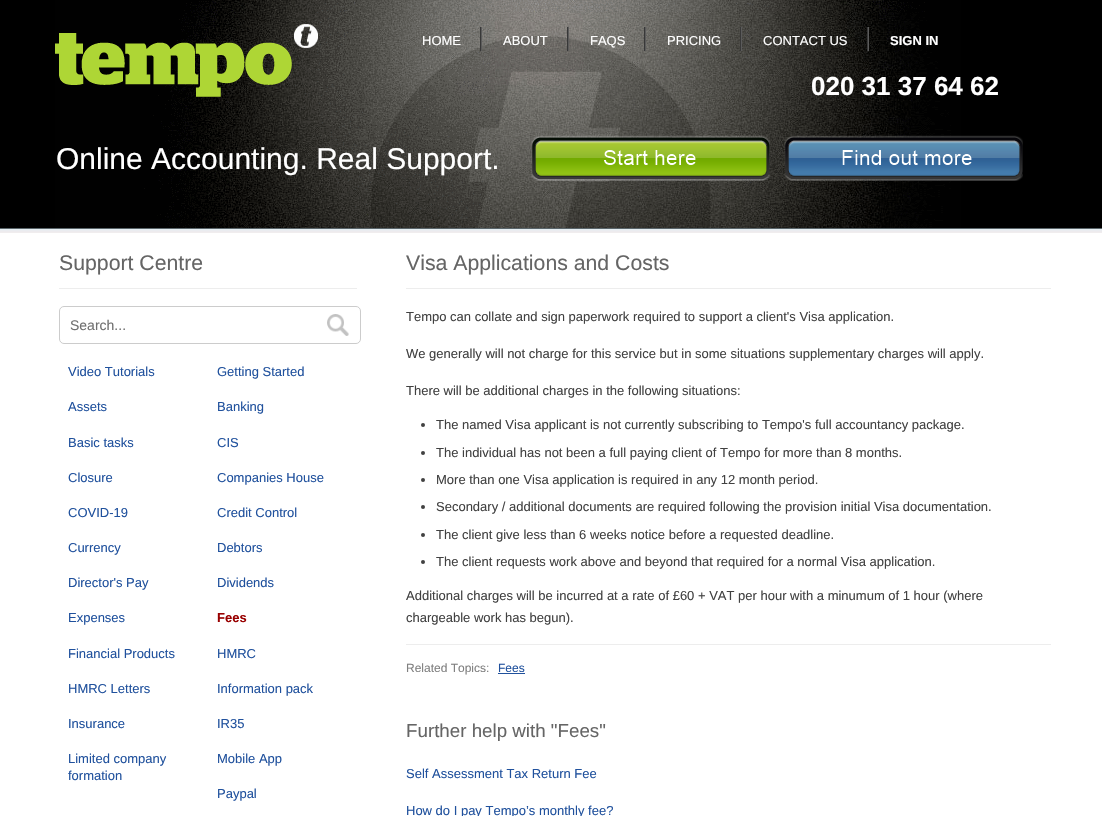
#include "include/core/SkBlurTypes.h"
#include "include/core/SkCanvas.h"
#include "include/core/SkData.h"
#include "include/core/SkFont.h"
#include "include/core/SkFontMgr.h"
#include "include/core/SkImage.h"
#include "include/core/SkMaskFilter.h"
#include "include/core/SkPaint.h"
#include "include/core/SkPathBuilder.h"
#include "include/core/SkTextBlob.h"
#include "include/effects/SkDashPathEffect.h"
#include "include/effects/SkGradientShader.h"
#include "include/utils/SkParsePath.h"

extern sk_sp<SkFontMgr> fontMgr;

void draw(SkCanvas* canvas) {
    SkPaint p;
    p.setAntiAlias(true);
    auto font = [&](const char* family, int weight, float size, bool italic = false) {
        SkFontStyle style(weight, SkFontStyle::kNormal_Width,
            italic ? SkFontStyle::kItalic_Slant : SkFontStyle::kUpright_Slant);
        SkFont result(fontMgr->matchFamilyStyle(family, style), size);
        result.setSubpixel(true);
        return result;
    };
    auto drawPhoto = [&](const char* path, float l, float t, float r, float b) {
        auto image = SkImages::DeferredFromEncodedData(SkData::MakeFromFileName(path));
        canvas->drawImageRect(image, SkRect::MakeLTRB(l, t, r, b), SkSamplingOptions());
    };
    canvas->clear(0xFFFFFFFF);
    drawPhoto("media/1.png", 0, 0, 1102, 233);
    drawPhoto("media/2.png", 55, 0, 961, 228);
    drawPhoto("media/3.png", 480, 27, 482, 51);
    auto font1 = font("Liberation Sans", 400, 13);
    p.setColor(0xFFFFFFFF);
    canvas->drawString("HOME", 422, 45, font1, p);
    drawPhoto("media/3.png", 567, 27, 569, 51);
    canvas->drawString("ABOUT", 503, 45, font1, p);
    drawPhoto("media/3.png", 644, 27, 646, 51);
    canvas->drawString("FAQS", 590, 45, font1, p);
    drawPhoto("media/3.png", 740, 27, 742, 51);
    canvas->drawString("PRICING", 667, 45, font1, p);
    drawPhoto("media/3.png", 867, 27, 869, 51);
    canvas->drawString("CONTACT US", 763, 45, font1, p);
    auto font2 = font("Liberation Sans", 700, 13);
    canvas->drawString("SIGN IN", 890, 45, font2, p);
    auto font3 = font("Liberation Sans", 700, 26);
    canvas->drawString("020 31 37 64 62", 811, 95, font3, p);
    auto font4 = font("Liberation Sans", 400, 30);
    canvas->drawString("Online Accounting. Real Support.", 56, 169, font4, p);
    drawPhoto("media/4.png", 531, 135, 770, 181);
    drawPhoto("media/5.png", 784, 135, 1023, 181);
    p.setColor(0xFFEDEDED);
    canvas->drawRect(SkRect::MakeLTRB(59, 288, 357, 289), p);
    auto font5 = font("Liberation Sans", 400, 21.25f);
    p.setColor(0xFF656565);
    canvas->drawString("Support Centre", 59, 270, font5, p);
    p.setStyle(SkPaint::kStroke_Style);
    p.setStrokeWidth(1);
    p.setColor(0xFFCCCCCC);
    canvas->drawRoundRect(SkRect::MakeLTRB(59.5f, 306.5f, 360.5f, 343.5f), 4.5f, 4.5f, p);
    auto font6 = font("Liberation Sans", 400, 14);
    p.setStyle(SkPaint::kFill_Style);
    p.setColor(0xFF707070);
    canvas->drawString("Search...", 70, 330, font6, p);
    drawPhoto("media/6.png", 327, 314, 349, 336);
    p.setColor(0xFF20519D);
    {
        const struct { const char* s; float x, y; } items[] = {
            {"Video Tutorials", 68, 376},
            {"Getting Started", 217, 376},
            {"Assets", 68, 411},
            {"Banking", 217, 411},
            {"Basic tasks", 68, 447},
            {"CIS", 217, 447},
            {"Closure", 68, 482},
            {"Companies House", 217, 482},
            {"COVID-19", 68, 517},
            {"Credit Control", 217, 517},
            {"Currency", 68, 552},
            {"Debtors", 217, 552},
            {"Director's Pay", 68, 587},
            {"Dividends", 217, 587},
            {"Expenses", 68, 622},
        };
        for (auto [s, x, y] : items) {
            canvas->drawString(s, x, y, font1, p);
        }
    }
    p.setColor(0xFF990000);
    canvas->drawString("Fees", 217, 622, font2, p);
    p.setColor(0xFF20519D);
    {
        const struct { const char* s; float x, y; } items[] = {
            {"Financial Products", 68, 658},
            {"HMRC", 217, 658},
            {"HMRC Letters", 68, 693},
            {"Information pack", 217, 693},
            {"Insurance", 68, 728},
            {"IR35", 217, 728},
            {"Limited company", 68, 763},
            {"formation", 68, 780},
            {"Mobile App", 217, 763},
            {"Paypal", 217, 798},
        };
        for (auto [s, x, y] : items) {
            canvas->drawString(s, x, y, font1, p);
        }
    }
    p.setColor(0xFFEDEDED);
    canvas->drawRect(SkRect::MakeLTRB(406, 288, 1051, 289), p);
    p.setColor(0xFF656565);
    canvas->drawString("Visa Applications and Costs", 406, 270, font5, p);
    p.setColor(0xFF414141);
    {
        const struct { const char* s; float x, y; } items[] = {
            {"Tempo can collate and sign paperwork required to support a client's Visa application.", 406, 321},
            {"We generally will not charge for this service but in some situations supplementary charges will apply.", 406, 358},
            {"There will be additional charges in the following situations:", 406, 395},
        };
        for (auto [s, x, y] : items) {
            canvas->drawString(s, x, y, font1, p);
        }
    }
    canvas->drawCircle(423, 425, 2, p);
    canvas->drawString("The named Visa applicant is not currently subscribing to Tempo's full accountancy package.", 436, 429, font1, p);
    canvas->drawCircle(423, 453, 2, p);
    canvas->drawString("The individual has not been a full paying client of Tempo for more than 8 months.", 436, 457, font1, p);
    canvas->drawCircle(423, 480, 2, p);
    canvas->drawString("More than one Visa application is required in any 12 month period.", 436, 484, font1, p);
    canvas->drawCircle(423, 507, 2, p);
    canvas->drawString("Secondary / additional documents are required following the provision initial Visa documentation.", 436, 511, font1, p);
    canvas->drawCircle(423, 535, 2, p);
    canvas->drawString("The client give less than 6 weeks notice before a requested deadline.", 436, 539, font1, p);
    canvas->drawCircle(423, 562, 2, p);
    {
        const struct { const char* s; float x, y; } items[] = {
            {"The client requests work above and beyond that required for a normal Visa application.", 436, 566},
            {"Additional charges will be incurred at a rate of £60 + VAT per hour with a minumum of 1 hour (where", 406, 600},
            {"chargeable work has begun).", 406, 622},
        };
        for (auto [s, x, y] : items) {
            canvas->drawString(s, x, y, font1, p);
        }
    }
    p.setColor(0xFFEDEDED);
    canvas->drawRect(SkRect::MakeLTRB(406, 644, 1051, 645), p);
    auto font7 = font("Liberation Sans", 400, 12);
    p.setColor(0xFF808080);
    canvas->drawString("Related Topics:", 406, 672, font7, p);
    p.setColor(0xFF20519D);
    canvas->drawString("Fees", 498, 672, font7, p);
    canvas->drawRect(SkRect::MakeLTRB(498, 673, 525, 674), p);
    auto font8 = font("Liberation Sans", 400, 18.75f);
    p.setColor(0xFF656565);
    canvas->drawString("Further help with \"Fees\"", 406, 737, font8, p);
    p.setColor(0xFF20519D);
    canvas->drawString("Self Assessment Tax Return Fee", 406, 778, font1, p);
    canvas->drawString("How do I pay Tempo’s monthly fee?", 406, 815, font1, p);
}
